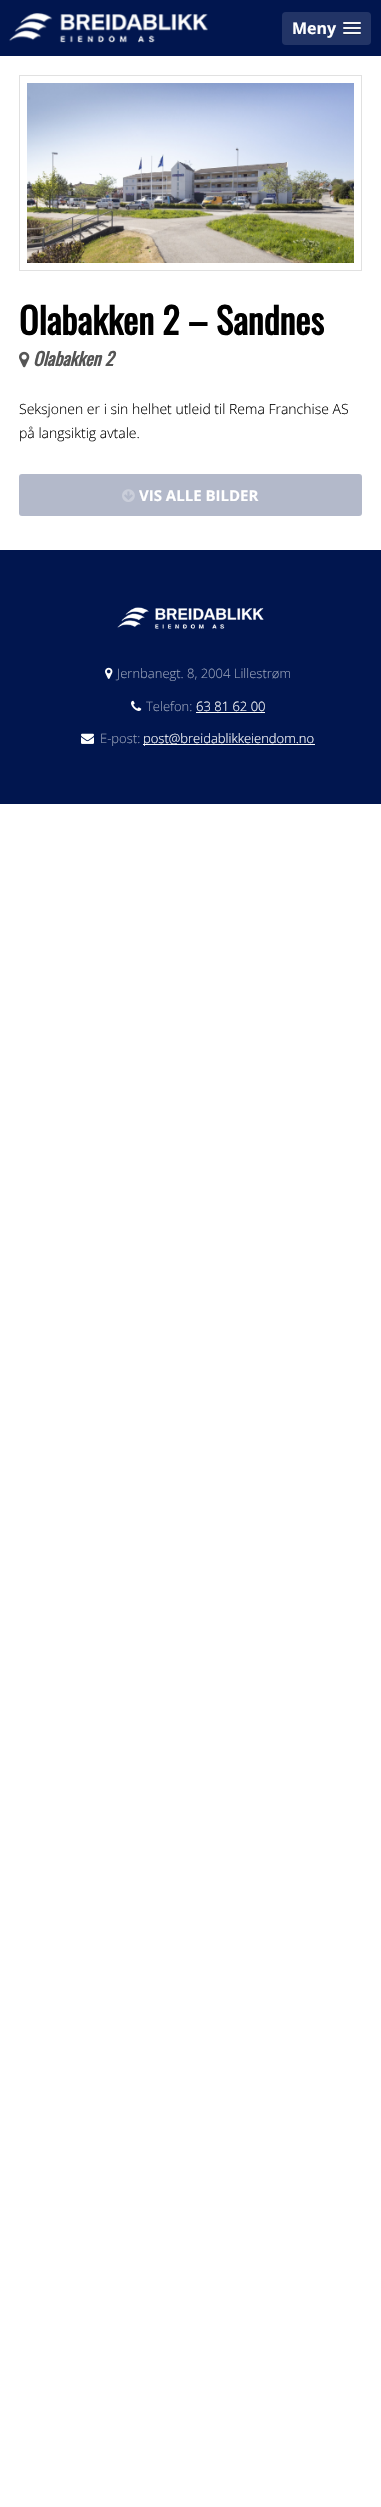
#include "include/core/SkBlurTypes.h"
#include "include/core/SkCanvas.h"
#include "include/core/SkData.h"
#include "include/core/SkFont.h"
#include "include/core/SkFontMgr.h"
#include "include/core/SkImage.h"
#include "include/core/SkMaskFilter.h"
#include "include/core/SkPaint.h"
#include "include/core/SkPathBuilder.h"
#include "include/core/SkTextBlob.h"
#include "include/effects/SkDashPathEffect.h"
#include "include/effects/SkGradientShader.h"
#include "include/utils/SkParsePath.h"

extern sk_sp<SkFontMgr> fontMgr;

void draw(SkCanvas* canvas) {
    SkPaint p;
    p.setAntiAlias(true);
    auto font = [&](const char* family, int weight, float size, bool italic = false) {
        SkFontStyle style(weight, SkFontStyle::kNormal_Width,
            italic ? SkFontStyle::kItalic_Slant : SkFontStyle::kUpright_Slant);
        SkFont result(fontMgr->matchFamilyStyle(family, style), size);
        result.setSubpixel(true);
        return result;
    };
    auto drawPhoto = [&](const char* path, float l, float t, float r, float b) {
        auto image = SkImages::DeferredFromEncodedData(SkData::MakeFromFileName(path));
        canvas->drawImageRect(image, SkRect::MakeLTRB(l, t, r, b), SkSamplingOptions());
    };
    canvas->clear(0xFFFFFFFF);
    p.setColor(0xFF01164F);
    canvas->drawRect(SkRect::MakeLTRB(0, 0, 381, 56), p);
    drawPhoto("media/1.png", 9, 13, 208, 43);
    p.setColor(0xFF223466);
    canvas->drawRoundRect(SkRect::MakeLTRB(282, 12, 371, 45), 4, 4, p);
    auto font1 = font("Open Sans", 700, 16);
    p.setColor(0xFFFFFFFF);
    canvas->drawString("Meny", 292, 34, font1, p);
    p.setColor(0xFF1A274D);
    canvas->drawPath(SkPathBuilder().moveTo(343, 23.5f).cubicTo(342, 25.5f, 346.5f, 25, 346.5f, 25).lineTo(357.5f, 25).cubicTo(357.5f, 25, 362, 25.5f, 361, 23.5f).cubicTo(360, 24.5f, 353.5f, 24, 352, 24).cubicTo(350.5f, 24, 344, 24.5f, 343, 23.5f).close().detach(), p);
    p.setColor(0xFFF5F5F5);
    canvas->drawRoundRect(SkRect::MakeLTRB(343, 22, 361, 24), 1, 1, p);
    p.setColor(0xFF1A274D);
    canvas->drawPath(SkPathBuilder().moveTo(343, 28.5f).cubicTo(342, 30.5f, 346.5f, 30, 346.5f, 30).lineTo(357.5f, 30).cubicTo(357.5f, 30, 362, 30.5f, 361, 28.5f).cubicTo(360, 29.5f, 353.5f, 29, 352, 29).cubicTo(350.5f, 29, 344, 29.5f, 343, 28.5f).close().detach(), p);
    p.setColor(0xFFF5F5F5);
    canvas->drawRoundRect(SkRect::MakeLTRB(343, 27, 361, 29), 1, 1, p);
    p.setColor(0xFF1A274D);
    canvas->drawPath(SkPathBuilder().moveTo(343, 33.5f).cubicTo(342, 35.5f, 346.5f, 35, 346.5f, 35).lineTo(357.5f, 35).cubicTo(357.5f, 35, 362, 35.5f, 361, 33.5f).cubicTo(360, 34.5f, 353.5f, 34, 352, 34).cubicTo(350.5f, 34, 344, 34.5f, 343, 33.5f).close().detach(), p);
    p.setColor(0xFFF5F5F5);
    canvas->drawRoundRect(SkRect::MakeLTRB(343, 32, 361, 34), 1, 1, p);
    p.setStyle(SkPaint::kStroke_Style);
    p.setStrokeWidth(1);
    p.setColor(0xFFE1E1E1);
    canvas->drawRect(SkRect::MakeLTRB(19.5f, 75.5f, 361.5f, 270.5f), p);
    drawPhoto("media/2.png", 27, 83, 354, 263);
    auto font2 = font("Oswald", 700, 36);
    p.setStyle(SkPaint::kFill_Style);
    p.setColor(0xFF000000);
    canvas->drawString("Olabakken 2 – Sandnes", 19, 335, font2, p);
    drawPhoto("media/3.png", 19, 351, 30, 368);
    auto font3 = font("Oswald", 700, 18, true);
    p.setColor(0xFF555555);
    canvas->drawString("Olabakken 2", 33, 366, font3, p);
    auto font4 = font("Open Sans", 300, 14);
    p.setColor(0xFF000000);
    canvas->drawString("Seksjonen er i sin helhet utleid til Rema Franchise AS", 19, 414, font4, p);
    canvas->drawString("på langsiktig avtale.", 19, 438, font4, p);
    p.setColor(0xFFB3B9CA);
    canvas->drawRoundRect(SkRect::MakeLTRB(19, 474, 362, 516), 3, 3, p);
    drawPhoto("media/4.png", 122, 489, 135, 502);
    auto font5 = font("Open Sans", 700, 15);
    p.setColor(0xFFFFFFFF);
    canvas->drawString("VIS ALLE BILDER", 139, 501, font5, p);
    p.setColor(0xFF01164F);
    canvas->drawRect(SkRect::MakeLTRB(0, 550, 381, 804), p);
    drawPhoto("media/5.png", 117, 607, 264, 629);
    drawPhoto("media/6.png", 105, 667, 113, 679);
    auto font6 = font("Open Sans", 300, 13);
    p.setColor(0xFF99A2B9);
    canvas->drawString("Jernbanegt. 8, 2004 Lillestrøm", 117, 678, font6, p);
    drawPhoto("media/7.png", 131, 700, 142, 711);
    canvas->drawString("Telefon:", 146, 711, font6, p);
    p.setColor(0xFFFFFFFF);
    canvas->drawString("63 81 62 00", 196, 711, font6, p);
    canvas->drawRect(SkRect::MakeLTRB(196, 712, 265, 713), p);
    drawPhoto("media/8.png", 81, 733, 94, 744);
    p.setColor(0xFF99A2B9);
    canvas->drawString("E-post:", 100, 743, font6, p);
    p.setColor(0xFFFFFFFF);
    canvas->drawRect(SkRect::MakeLTRB(143, 744, 315, 745), p);
    canvas->drawString("post@breidablikkeiendom.no", 143, 743, font6, p);
}
